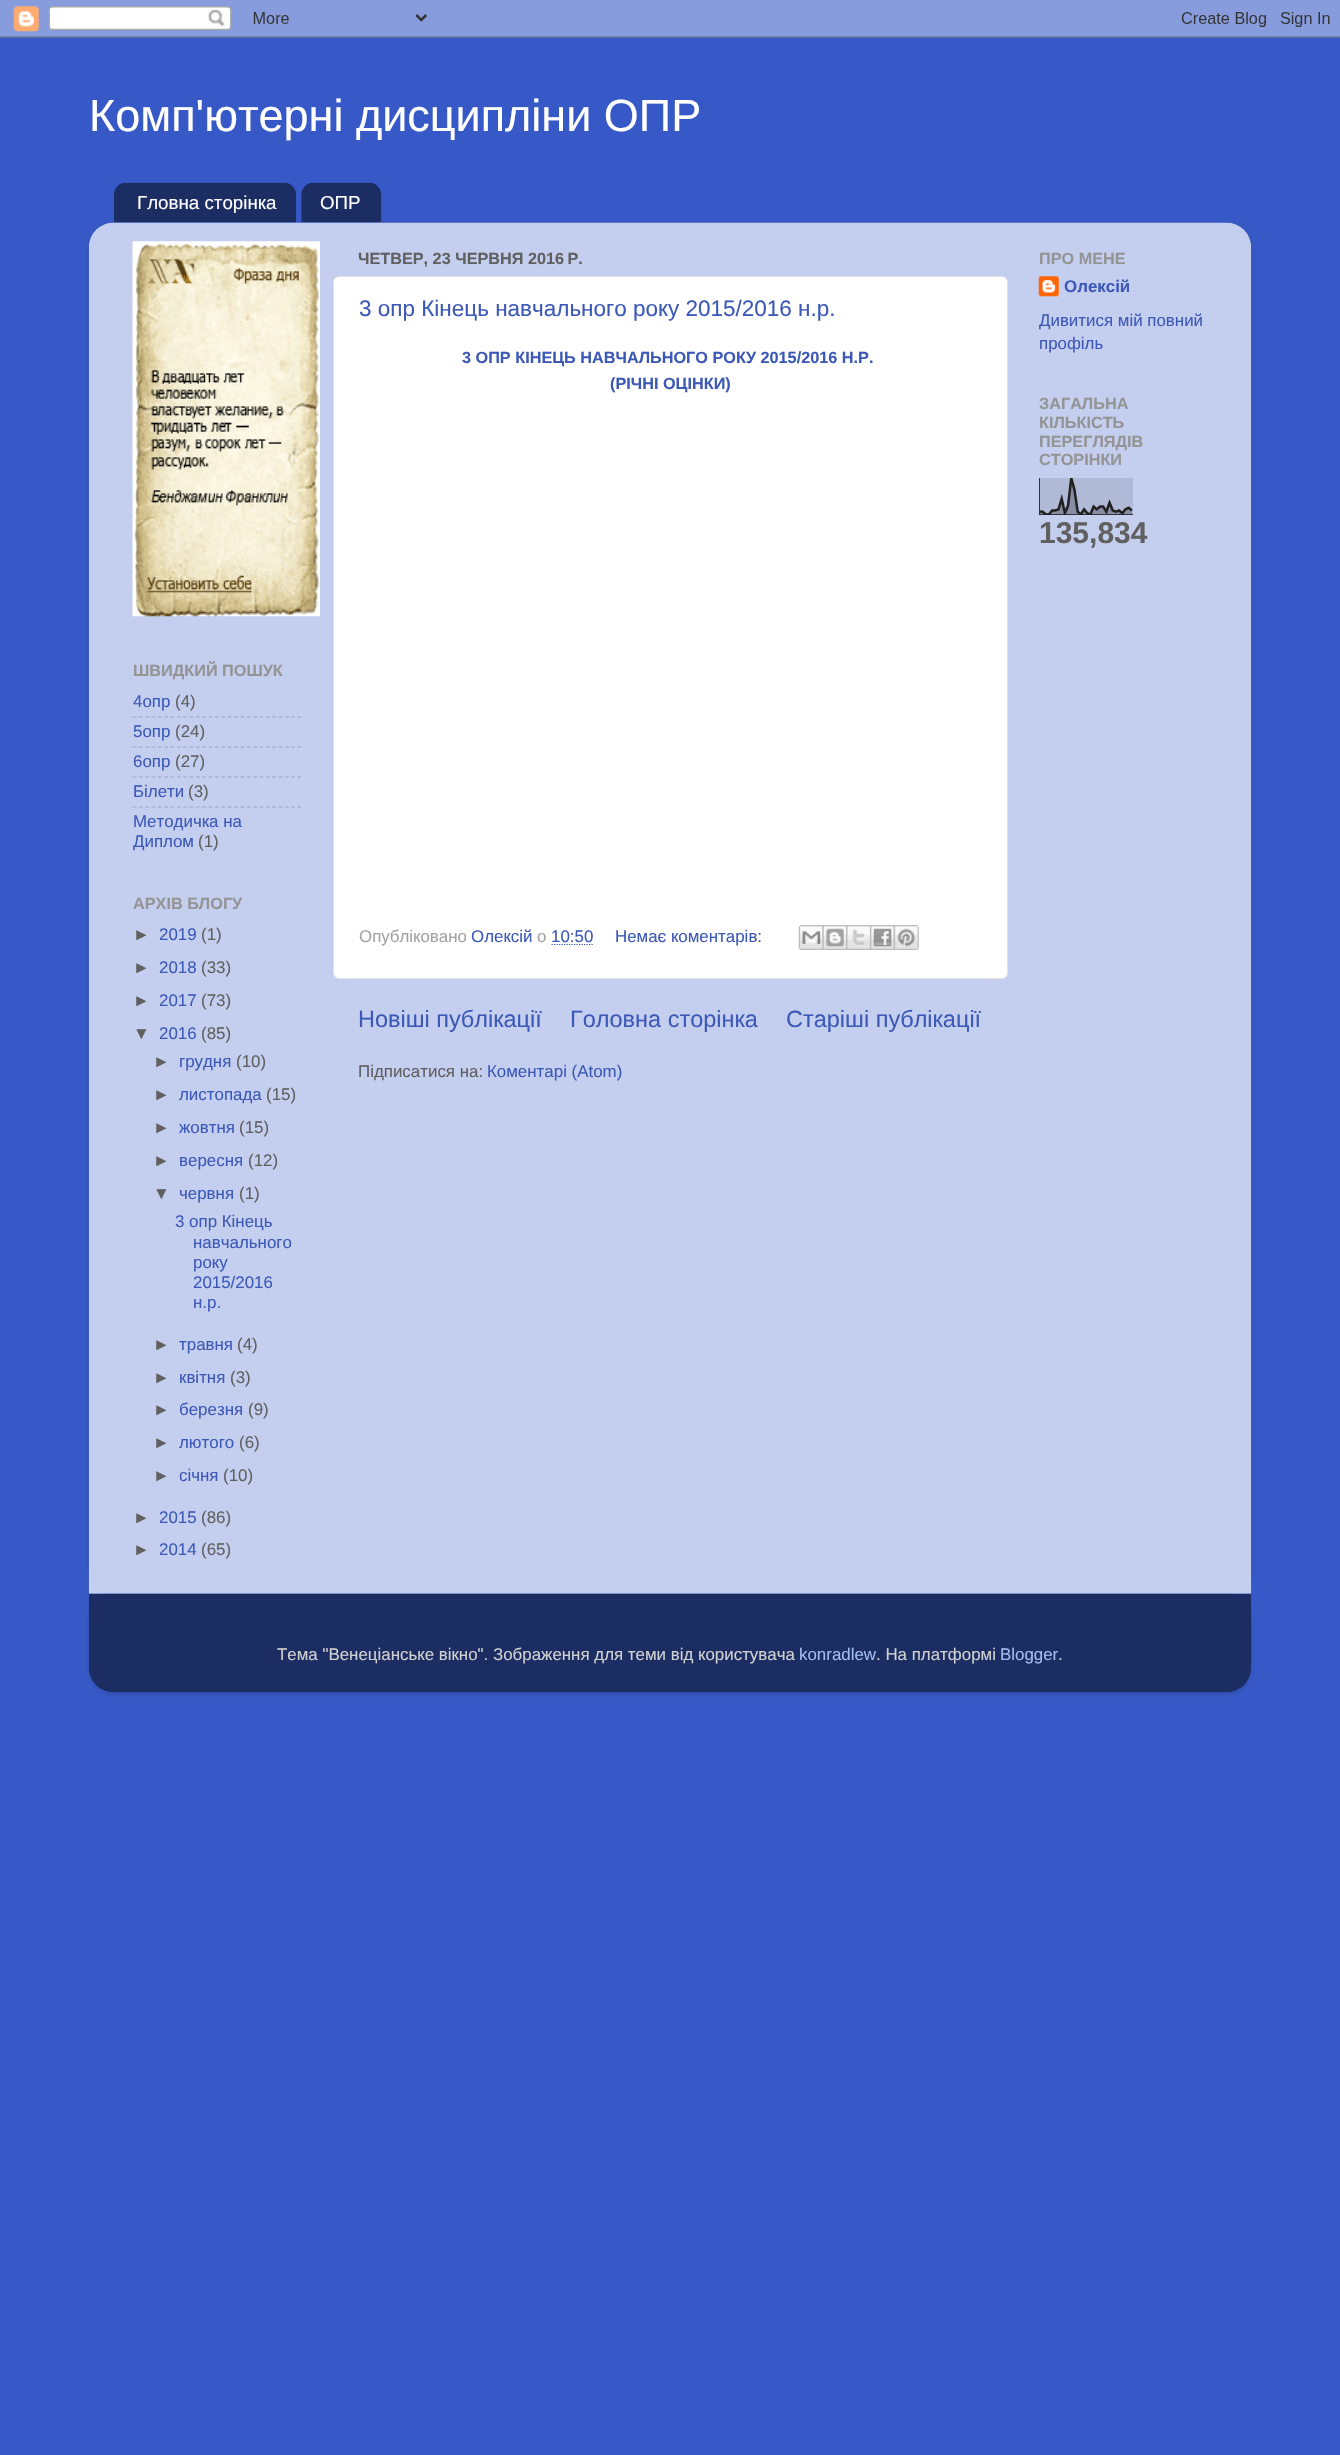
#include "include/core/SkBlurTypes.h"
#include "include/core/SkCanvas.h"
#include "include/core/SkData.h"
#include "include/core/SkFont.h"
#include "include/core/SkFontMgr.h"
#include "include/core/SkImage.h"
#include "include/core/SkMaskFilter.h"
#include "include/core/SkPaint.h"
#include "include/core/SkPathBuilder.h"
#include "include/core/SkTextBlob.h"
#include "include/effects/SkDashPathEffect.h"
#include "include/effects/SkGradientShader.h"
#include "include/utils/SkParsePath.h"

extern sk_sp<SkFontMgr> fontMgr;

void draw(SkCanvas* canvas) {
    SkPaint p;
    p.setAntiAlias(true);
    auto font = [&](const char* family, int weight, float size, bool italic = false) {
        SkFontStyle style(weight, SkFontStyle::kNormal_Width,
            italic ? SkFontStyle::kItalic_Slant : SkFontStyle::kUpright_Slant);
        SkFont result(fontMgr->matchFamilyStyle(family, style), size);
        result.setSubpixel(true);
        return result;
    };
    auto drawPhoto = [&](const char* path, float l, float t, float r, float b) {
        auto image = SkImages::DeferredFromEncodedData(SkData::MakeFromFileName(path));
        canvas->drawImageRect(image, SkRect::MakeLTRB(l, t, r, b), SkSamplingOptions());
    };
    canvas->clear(0xFF3759C7);
    drawPhoto("media/1.png", 0, 0, 1340, 38);
    auto font1 = font("Liberation Sans", 400, 45);
    p.setColor(0xFFFFFFFF);
    canvas->drawString("Комп'ютерні дисципліни ОПР", 89, 131, font1, p);
    drawPhoto("media/2.png", 114, 182, 297, 223);
    auto font2 = font("Liberation Sans", 400, 18.75f);
    canvas->drawString("Гловна сторінка", 137, 209, font2, p);
    drawPhoto("media/3.png", 301, 182, 382, 223);
    canvas->drawString("ОПР", 320, 209, font2, p);
    canvas->save();
    canvas->clipPath(SkPathBuilder(SkPathFillType::kEvenOdd).moveTo(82, 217).lineTo(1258, 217).lineTo(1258, 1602).lineTo(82, 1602).close().moveTo(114, 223).lineTo(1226, 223).cubicTo(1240, 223, 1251, 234, 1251, 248).lineTo(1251, 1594).lineTo(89, 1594).lineTo(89, 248).cubicTo(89, 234, 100, 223, 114, 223).close().detach(), true);
    p.setColor(0x26000000);
    p.setMaskFilter(SkMaskFilter::MakeBlur(kNormal_SkBlurStyle, 2));
    canvas->drawRoundRect(SkRect::MakeLTRB(89, 224, 1251, 1595), 25, 25, p);
    p.setMaskFilter(nullptr);
    canvas->restore();
    drawPhoto("media/4.png", 88, 222, 1252, 1594);
    auto font3 = font("Liberation Sans", 700, 16.25f);
    p.setColor(0xFF606060);
    canvas->drawString("ЧЕТВЕР, 23 ЧЕРВНЯ 2016 Р.", 358, 264, font3, p);
    p.setColor(0xFFFFFFFF);
    canvas->drawRoundRect(SkRect::MakeLTRB(333.5f, 276.5f, 1007.5f, 978.5f), 5.5f, 5.5f, p);
    p.setStyle(SkPaint::kStroke_Style);
    p.setStrokeWidth(1);
    p.setColor(0xFFE2E2E2);
    canvas->drawRoundRect(SkRect::MakeLTRB(333.5f, 276.5f, 1007.5f, 978.5f), 5.5f, 5.5f, p);
    auto font4 = font("Liberation Sans", 400, 22.5f);
    p.setStyle(SkPaint::kFill_Style);
    p.setColor(0xFF3D59B7);
    canvas->drawString("3 опр Кінець навчального року 2015/2016 н.р.", 359, 316, font4, p);
    canvas->drawString("3 ОПР КІНЕЦЬ НАВЧАЛЬНОГО РОКУ 2015/2016 Н.Р.", 462, 363, font3, p);
    canvas->drawString("(РІЧНІ ОЦІНКИ)", 610, 389, font3, p);
    auto font5 = font("Liberation Sans", 400, 16.9f);
    p.setColor(0xFFA3A3A3);
    canvas->drawString("Опубліковано", 359, 942, font5, p);
    p.setColor(0xFF3D59B7);
    canvas->drawString("Олексій", 471, 942, font5, p);
    p.setColor(0xFFA3A3A3);
    canvas->drawString("о", 537, 942, font5, p);
    p.setColor(0xFF3D59B7);
    canvas->drawString("10:50", 551, 942, font5, p);
    p.setStyle(SkPaint::kStroke_Style);
    p.setStrokeWidth(1.2f);
    p.setPathEffect(SkDashPathEffect::Make({{1.25f, 1.25f}}, 0));
    canvas->drawPath(SkPathBuilder().moveTo(551.5f, 944.5f).lineTo(593.5f, 944.5f).detach(), p);
    p.setPathEffect(nullptr);
    p.setStyle(SkPaint::kFill_Style);
    canvas->drawString("Немає коментарів:", 615, 942, font5, p);
    drawPhoto("media/5.png", 798, 925, 823, 950);
    drawPhoto("media/6.png", 822, 925, 847, 950);
    drawPhoto("media/7.png", 846, 925, 870, 950);
    drawPhoto("media/8.png", 870, 925, 894, 950);
    drawPhoto("media/9.png", 893, 925, 919, 950);
    auto font6 = font("Liberation Sans", 400, 23.5f);
    {
        const struct { const char* s; float x, y; } items[] = {
            {"Новіші публікації", 358, 1027},
            {"Головна сторінка", 570, 1027},
            {"Старіші публікації", 786, 1027},
        };
        for (auto [s, x, y] : items) {
            canvas->drawString(s, x, y, font6, p);
        }
    }
    p.setColor(0xFF606060);
    canvas->drawString("Підписатися на:", 358, 1077, font5, p);
    p.setColor(0xFF3D59B7);
    canvas->drawString("Коментарі (Atom)", 487, 1077, font5, p);
    p.setColor(0xFF949494);
    canvas->drawString("ПРО МЕНЕ", 1039, 264, font3, p);
    drawPhoto("media/10.png", 1038, 276, 1059, 297);
    auto font7 = font("Liberation Sans", 700, 16.9f);
    p.setColor(0xFF3D59B7);
    canvas->drawString("Олексій", 1064, 292, font7, p);
    canvas->drawString("Дивитися мій повний", 1039, 326, font5, p);
    canvas->drawString("профіль", 1039, 349, font5, p);
    p.setColor(0xFF949494);
    {
        const struct { const char* s; float x, y; } items[] = {
            {"ЗАГАЛЬНА", 1039, 409},
            {"КІЛЬКІСТЬ", 1039, 428},
            {"ПЕРЕГЛЯДІВ", 1039, 447},
            {"СТОРІНКИ", 1039, 465},
        };
        for (auto [s, x, y] : items) {
            canvas->drawString(s, x, y, font3, p);
        }
    }
    drawPhoto("media/11.png", 1039, 478, 1133, 515);
    auto font8 = font("Liberation Sans", 700, 30);
    p.setColor(0xFF606060);
    canvas->drawString("135,834", 1039, 543, font8, p);
    drawPhoto("media/12.png", 132, 241, 320, 617);
    p.setColor(0xFF949494);
    canvas->drawString("ШВИДКИЙ ПОШУК", 133, 676, font3, p);
    p.setColor(0xFF3D59B7);
    canvas->drawString("4опр", 133, 707, font5, p);
    p.setColor(0xFF606060);
    canvas->drawString("(4)", 175, 707, font5, p);
    p.setStyle(SkPaint::kStroke_Style);
    p.setColor(0xFFA2A7B7);
    p.setPathEffect(SkDashPathEffect::Make({{3.75f, 2.6f}}, 0));
    canvas->drawPath(SkPathBuilder().moveTo(132.5f, 717).lineTo(301, 717).detach(), p);
    p.setPathEffect(nullptr);
    p.setStyle(SkPaint::kFill_Style);
    p.setColor(0xFF3D59B7);
    canvas->drawString("5опр", 133, 737, font5, p);
    p.setColor(0xFF606060);
    canvas->drawString("(24)", 175, 737, font5, p);
    p.setStyle(SkPaint::kStroke_Style);
    p.setColor(0xFFA2A7B7);
    p.setPathEffect(SkDashPathEffect::Make({{3.75f, 2.6f}}, 0));
    canvas->drawPath(SkPathBuilder().moveTo(132.5f, 747).lineTo(301, 747).detach(), p);
    p.setPathEffect(nullptr);
    p.setStyle(SkPaint::kFill_Style);
    p.setColor(0xFF3D59B7);
    canvas->drawString("6опр", 133, 767, font5, p);
    p.setColor(0xFF606060);
    canvas->drawString("(27)", 175, 767, font5, p);
    p.setStyle(SkPaint::kStroke_Style);
    p.setColor(0xFFA2A7B7);
    p.setPathEffect(SkDashPathEffect::Make({{3.75f, 2.6f}}, 0));
    canvas->drawPath(SkPathBuilder().moveTo(132.5f, 777).lineTo(301, 777).detach(), p);
    p.setPathEffect(nullptr);
    p.setStyle(SkPaint::kFill_Style);
    p.setColor(0xFF3D59B7);
    canvas->drawString("Білети", 133, 797, font5, p);
    p.setColor(0xFF606060);
    canvas->drawString("(3)", 188, 797, font5, p);
    p.setStyle(SkPaint::kStroke_Style);
    p.setColor(0xFFA2A7B7);
    p.setPathEffect(SkDashPathEffect::Make({{3.75f, 2.6f}}, 0));
    canvas->drawPath(SkPathBuilder().moveTo(132.5f, 807).lineTo(301, 807).detach(), p);
    p.setPathEffect(nullptr);
    p.setStyle(SkPaint::kFill_Style);
    p.setColor(0xFF3D59B7);
    canvas->drawString("Методичка на", 133, 827, font5, p);
    canvas->drawString("Диплом", 133, 847, font5, p);
    p.setColor(0xFF606060);
    canvas->drawString("(1)", 198, 847, font5, p);
    p.setColor(0xFF949494);
    canvas->drawString("АРХІВ БЛОГУ", 133, 909, font3, p);
    p.setColor(0xFF606060);
    canvas->drawString("►", 133, 940, font5, p);
    p.setColor(0xFF3D59B7);
    canvas->drawString("2019", 159, 940, font5, p);
    p.setColor(0xFF606060);
    canvas->drawString("(1)", 201, 940, font5, p);
    canvas->drawString("►", 133, 973, font5, p);
    p.setColor(0xFF3D59B7);
    canvas->drawString("2018", 159, 973, font5, p);
    p.setColor(0xFF606060);
    canvas->drawString("(33)", 201, 973, font5, p);
    canvas->drawString("►", 133, 1006, font5, p);
    p.setColor(0xFF3D59B7);
    canvas->drawString("2017", 159, 1006, font5, p);
    p.setColor(0xFF606060);
    canvas->drawString("(73)", 201, 1006, font5, p);
    canvas->drawString("▼", 133, 1039, font5, p);
    p.setColor(0xFF3D59B7);
    canvas->drawString("2016", 159, 1039, font5, p);
    p.setColor(0xFF606060);
    canvas->drawString("(85)", 201, 1039, font5, p);
    canvas->drawString("►", 153, 1067, font5, p);
    p.setColor(0xFF3D59B7);
    canvas->drawString("грудня", 179, 1067, font5, p);
    p.setColor(0xFF606060);
    canvas->drawString("(10)", 236, 1067, font5, p);
    canvas->drawString("►", 153, 1100, font5, p);
    p.setColor(0xFF3D59B7);
    canvas->drawString("листопада", 179, 1100, font5, p);
    p.setColor(0xFF606060);
    canvas->drawString("(15)", 266, 1100, font5, p);
    canvas->drawString("►", 153, 1133, font5, p);
    p.setColor(0xFF3D59B7);
    canvas->drawString("жовтня", 179, 1133, font5, p);
    p.setColor(0xFF606060);
    canvas->drawString("(15)", 239, 1133, font5, p);
    canvas->drawString("►", 153, 1166, font5, p);
    p.setColor(0xFF3D59B7);
    canvas->drawString("вересня", 179, 1166, font5, p);
    p.setColor(0xFF606060);
    canvas->drawString("(12)", 248, 1166, font5, p);
    canvas->drawString("▼", 153, 1199, font5, p);
    p.setColor(0xFF3D59B7);
    canvas->drawString("червня", 179, 1199, font5, p);
    p.setColor(0xFF606060);
    canvas->drawString("(1)", 239, 1199, font5, p);
    p.setColor(0xFF3D59B7);
    {
        const struct { const char* s; float x, y; } items[] = {
            {"3 опр Кінець", 175, 1227},
            {"навчального", 193, 1248},
            {"року", 193, 1268},
            {"2015/2016", 193, 1288},
            {"н.р.", 193, 1308},
        };
        for (auto [s, x, y] : items) {
            canvas->drawString(s, x, y, font5, p);
        }
    }
    p.setColor(0xFF606060);
    canvas->drawString("►", 153, 1350, font5, p);
    p.setColor(0xFF3D59B7);
    canvas->drawString("травня", 179, 1350, font5, p);
    p.setColor(0xFF606060);
    canvas->drawString("(4)", 237, 1350, font5, p);
    canvas->drawString("►", 153, 1383, font5, p);
    p.setColor(0xFF3D59B7);
    canvas->drawString("квітня", 179, 1383, font5, p);
    p.setColor(0xFF606060);
    canvas->drawString("(3)", 230, 1383, font5, p);
    canvas->drawString("►", 153, 1415, font5, p);
    p.setColor(0xFF3D59B7);
    canvas->drawString("березня", 179, 1415, font5, p);
    p.setColor(0xFF606060);
    canvas->drawString("(9)", 248, 1415, font5, p);
    canvas->drawString("►", 153, 1448, font5, p);
    p.setColor(0xFF3D59B7);
    canvas->drawString("лютого", 179, 1448, font5, p);
    p.setColor(0xFF606060);
    canvas->drawString("(6)", 239, 1448, font5, p);
    canvas->drawString("►", 153, 1481, font5, p);
    p.setColor(0xFF3D59B7);
    canvas->drawString("січня", 179, 1481, font5, p);
    p.setColor(0xFF606060);
    canvas->drawString("(10)", 223, 1481, font5, p);
    canvas->drawString("►", 133, 1523, font5, p);
    p.setColor(0xFF3D59B7);
    canvas->drawString("2015", 159, 1523, font5, p);
    p.setColor(0xFF606060);
    canvas->drawString("(86)", 201, 1523, font5, p);
    canvas->drawString("►", 133, 1555, font5, p);
    p.setColor(0xFF3D59B7);
    canvas->drawString("2014", 159, 1555, font5, p);
    p.setColor(0xFF606060);
    canvas->drawString("(65)", 201, 1555, font5, p);
    canvas->save();
    canvas->clipPath(SkPathBuilder(SkPathFillType::kEvenOdd).moveTo(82, 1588).lineTo(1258, 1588).lineTo(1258, 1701).lineTo(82, 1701).close().moveTo(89, 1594).lineTo(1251, 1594).lineTo(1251, 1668).cubicTo(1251, 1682, 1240, 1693, 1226, 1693).lineTo(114, 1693).cubicTo(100, 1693, 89, 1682, 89, 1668).close().detach(), true);
    p.setColor(0x26000000);
    p.setMaskFilter(SkMaskFilter::MakeBlur(kNormal_SkBlurStyle, 2));
    canvas->drawRoundRect(SkRect::MakeLTRB(89, 1595, 1251, 1694), 25, 25, p);
    p.setMaskFilter(nullptr);
    canvas->restore();
    drawPhoto("media/13.png", 88, 1593, 1252, 1693);
    p.setColor(0xFFD1D1D1);
    canvas->drawString("Тема \"Венеціанське вікно\". Зображення для теми від користувача", 277, 1660, font5, p);
    p.setColor(0xFFA4BDEF);
    canvas->drawString("konradlew", 799, 1660, font5, p);
    p.setColor(0xFFD1D1D1);
    canvas->drawString(". На платформі", 876, 1660, font5, p);
    p.setColor(0xFFA4BDEF);
    canvas->drawString("Blogger", 1000, 1660, font5, p);
    p.setColor(0xFFD1D1D1);
    canvas->drawString(".", 1058, 1660, font5, p);
}
